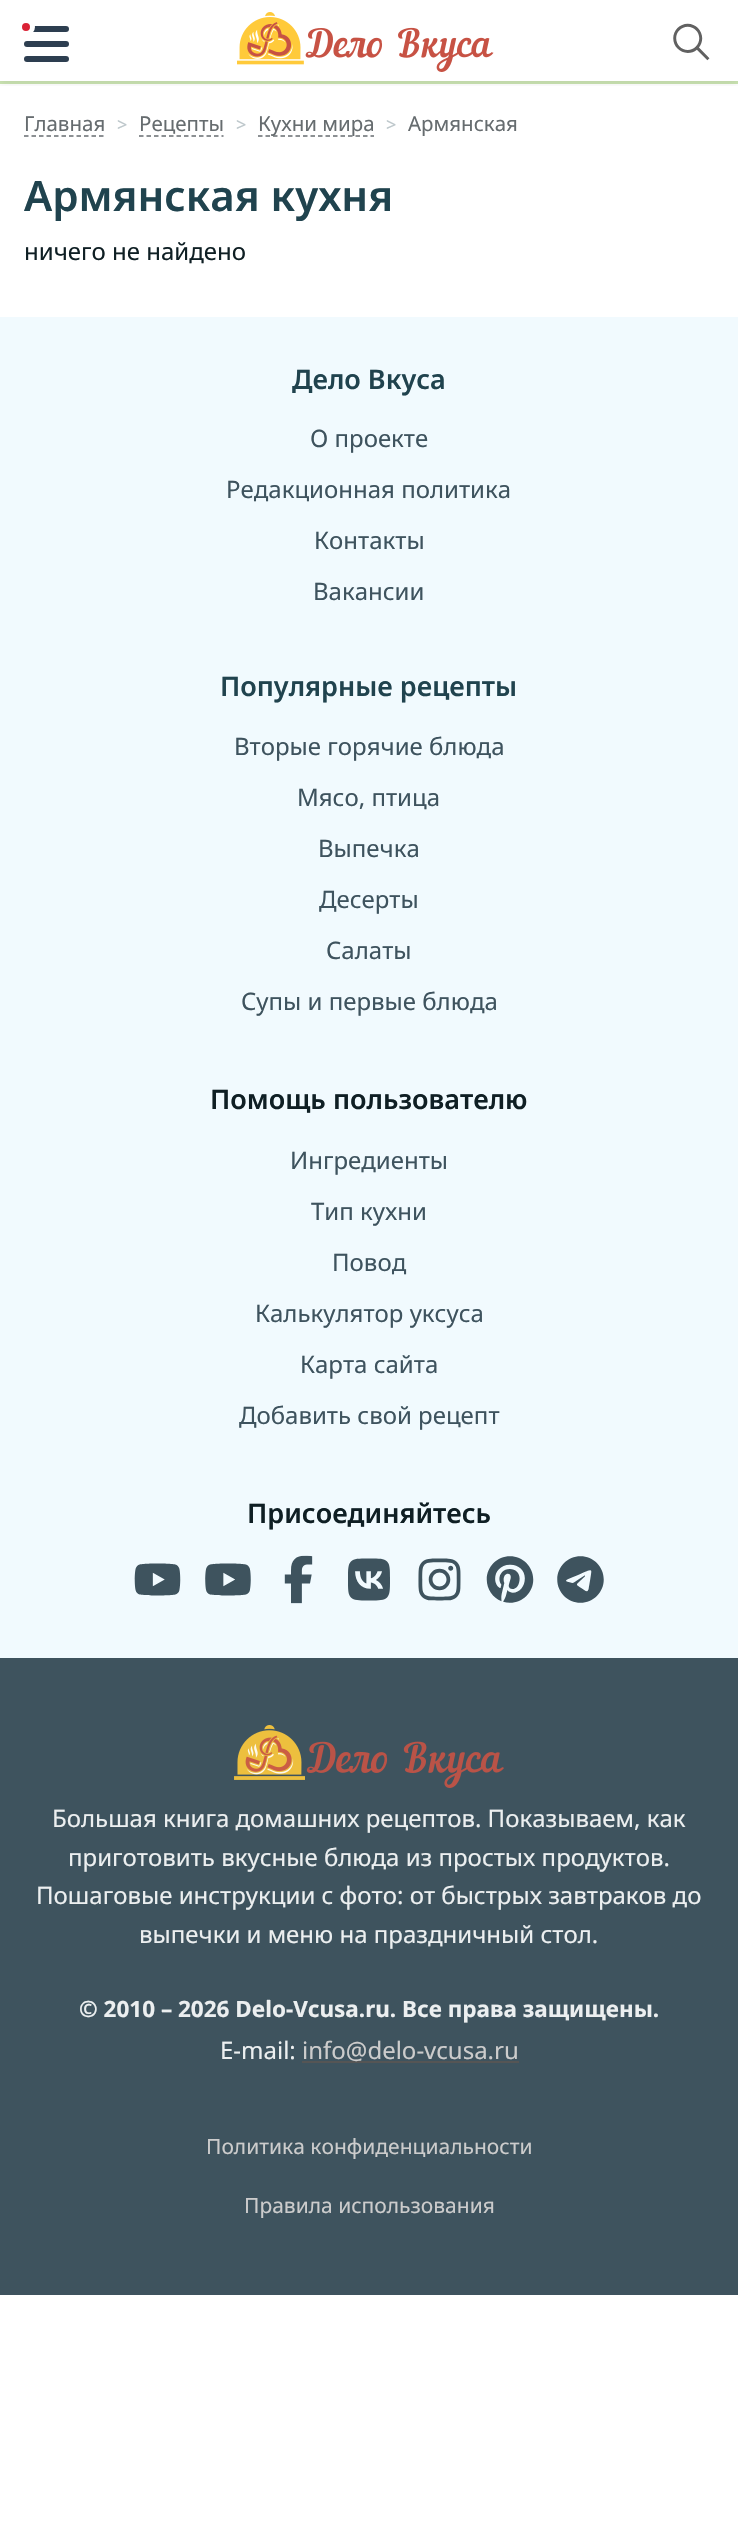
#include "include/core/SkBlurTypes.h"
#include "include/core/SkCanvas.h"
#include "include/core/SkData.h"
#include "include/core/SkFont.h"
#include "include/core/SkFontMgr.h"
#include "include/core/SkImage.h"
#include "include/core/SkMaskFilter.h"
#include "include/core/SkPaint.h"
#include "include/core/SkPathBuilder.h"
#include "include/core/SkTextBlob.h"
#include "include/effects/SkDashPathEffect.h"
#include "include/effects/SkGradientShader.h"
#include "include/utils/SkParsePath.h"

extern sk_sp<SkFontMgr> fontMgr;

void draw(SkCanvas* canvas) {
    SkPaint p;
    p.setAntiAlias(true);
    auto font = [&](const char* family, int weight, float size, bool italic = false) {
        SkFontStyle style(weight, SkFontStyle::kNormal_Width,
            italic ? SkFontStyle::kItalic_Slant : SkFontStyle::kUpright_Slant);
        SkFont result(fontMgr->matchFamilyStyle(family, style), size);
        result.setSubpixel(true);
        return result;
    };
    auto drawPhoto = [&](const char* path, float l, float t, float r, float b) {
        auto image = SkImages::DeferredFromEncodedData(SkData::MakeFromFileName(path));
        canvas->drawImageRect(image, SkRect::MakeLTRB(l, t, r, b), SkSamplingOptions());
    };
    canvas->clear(0xFFFFFFFF);
    p.setColor(0xFFCBE4B3);
    canvas->drawRect(SkRect::MakeLTRB(0, 81, 738, 84), p);
    canvas->save();
    canvas->clipRect(SkRect::MakeLTRB(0, 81, 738, 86));
    p.setColor(0x14000000);
    p.setMaskFilter(SkMaskFilter::MakeBlur(kNormal_SkBlurStyle, 4));
    canvas->drawRect(SkRect::MakeLTRB(0, 2, 738, 83), p);
    p.setMaskFilter(nullptr);
    canvas->restore();
    p.setColor(0xFF2D3E50);
    canvas->drawRoundRect(SkRect::MakeLTRB(24, 26, 69, 32), 3, 3, p);
    p.setColor(0xFFDA2235);
    canvas->drawCircle(26, 27, 6.5f, p);
    p.setStyle(SkPaint::kStroke_Style);
    p.setStrokeWidth(5);
    p.setColor(0xFFFFFFFF);
    canvas->drawCircle(26, 27, 6.5f, p);
    p.setStyle(SkPaint::kFill_Style);
    p.setColor(0xFF2D3E50);
    canvas->drawRoundRect(SkRect::MakeLTRB(24, 41, 69, 47), 3, 3, p);
    canvas->drawRoundRect(SkRect::MakeLTRB(24, 56, 69, 62), 3, 3, p);
    drawPhoto("media/1.png", 237, 12, 494, 72);
    drawPhoto("media/2.png", 673, 23, 710, 61);
    auto font1 = font("Noto Sans", 400, 20.5f);
    p.setColor(0xFF666C6F);
    canvas->drawString("Главная", 24, 131, font1, p);
    p.setStyle(SkPaint::kStroke_Style);
    p.setStrokeWidth(1.5f);
    p.setPathEffect(SkDashPathEffect::Make({{4.5f, 3}}, 0));
    canvas->drawPath(SkPathBuilder().moveTo(24, 136).lineTo(105, 136).detach(), p);
    p.setPathEffect(nullptr);
    auto font2 = font("Noto Sans", 400, 18);
    p.setStyle(SkPaint::kFill_Style);
    p.setColor(0xFFBDC7CB);
    canvas->drawString(">", 117, 131, font2, p);
    p.setColor(0xFF666C6F);
    canvas->drawString("Рецепты", 139, 131, font1, p);
    p.setStyle(SkPaint::kStroke_Style);
    p.setPathEffect(SkDashPathEffect::Make({{4.5f, 3}}, 0));
    canvas->drawPath(SkPathBuilder().moveTo(139, 136).lineTo(223.5f, 136).detach(), p);
    p.setPathEffect(nullptr);
    p.setStyle(SkPaint::kFill_Style);
    p.setColor(0xFFBDC7CB);
    canvas->drawString(">", 236, 131, font2, p);
    p.setStyle(SkPaint::kStroke_Style);
    p.setColor(0xFF666C6F);
    p.setPathEffect(SkDashPathEffect::Make({{4.5f, 3}}, 0));
    canvas->drawPath(SkPathBuilder().moveTo(258, 136).lineTo(374, 136).detach(), p);
    p.setPathEffect(nullptr);
    p.setStyle(SkPaint::kFill_Style);
    canvas->drawString("Кухни мира", 258, 131, font1, p);
    p.setColor(0xFFBDC7CB);
    canvas->drawString(">", 386, 131, font2, p);
    p.setColor(0xFF666C6F);
    canvas->drawString("Армянская", 408, 131, font1, p);
    auto font3 = font("Noto Sans", 600, 42);
    p.setColor(0xFF20434E);
    canvas->drawString("Армянская кухня", 24, 211, font3, p);
    auto font4 = font("Noto Sans", 400, 24);
    p.setColor(0xFF0F1F24);
    canvas->drawString("ничего не найдено", 24, 260, font4, p);
    p.setColor(0xFFF1FAFE);
    canvas->drawRect(SkRect::MakeLTRB(0, 317, 738, 1658), p);
    auto font5 = font("Noto Sans", 600, 27);
    p.setColor(0xFF20434E);
    canvas->drawString("Дело Вкуса", 292, 389, font5, p);
    p.setColor(0xFF3E535E);
    {
        const struct { const char* s; float x, y; } items[] = {
            {"О проекте", 310, 447},
            {"Редакционная политика", 226, 498},
            {"Контакты", 314, 549},
            {"Вакансии", 313, 600},
        };
        for (auto [s, x, y] : items) {
            canvas->drawString(s, x, y, font4, p);
        }
    }
    p.setColor(0xFF20434E);
    canvas->drawString("Популярные рецепты", 220, 696, font5, p);
    p.setColor(0xFF3E535E);
    {
        const struct { const char* s; float x, y; } items[] = {
            {"Вторые горячие блюда", 234, 755},
            {"Мясо, птица", 297, 806},
            {"Выпечка", 318, 857},
            {"Десерты", 319, 908},
            {"Салаты", 326, 959},
            {"Супы и первые блюда", 241, 1010},
        };
        for (auto [s, x, y] : items) {
            canvas->drawString(s, x, y, font4, p);
        }
    }
    p.setColor(0xFF0F1F24);
    canvas->drawString("Помощь пользователю", 210, 1109, font5, p);
    p.setColor(0xFF3E535E);
    {
        const struct { const char* s; float x, y; } items[] = {
            {"Ингредиенты", 290, 1169},
            {"Тип кухни", 311, 1220},
            {"Повод", 332, 1271},
            {"Калькулятор уксуса", 255, 1322},
            {"Карта сайта", 300, 1373},
            {"Добавить свой рецепт", 239, 1424},
        };
        for (auto [s, x, y] : items) {
            canvas->drawString(s, x, y, font4, p);
        }
    }
    p.setColor(0xFF0F1F24);
    canvas->drawString("Присоединяйтесь", 247, 1523, font5, p);
    drawPhoto("media/3.png", 134, 1563, 181, 1596);
    drawPhoto("media/4.png", 205, 1563, 251, 1596);
    drawPhoto("media/5.png", 284, 1555, 313, 1604);
    drawPhoto("media/6.png", 348, 1558, 390, 1601);
    drawPhoto("media/7.png", 418, 1558, 461, 1601);
    drawPhoto("media/8.png", 486, 1556, 534, 1603);
    drawPhoto("media/9.png", 557, 1556, 604, 1603);
    p.setColor(0xFF3E535E);
    canvas->drawRect(SkRect::MakeLTRB(0, 1658, 738, 2295), p);
    drawPhoto("media/10.png", 234, 1725, 504, 1788);
    p.setColor(0xFFECEFF0);
    {
        const struct { const char* s; float x, y; } items[] = {
            {"Большая книга домашних рецептов. Показываем, как", 52, 1827},
            {"приготовить вкусные блюда из простых продуктов.", 68, 1866},
            {"Пошаговые инструкции с фото: от быстрых завтраков до", 36, 1904},
            {"выпечки и меню на праздничный стол.", 139, 1943},
        };
        for (auto [s, x, y] : items) {
            canvas->drawString(s, x, y, font4, p);
        }
    }
    auto font6 = font("Noto Sans", 700, 22.5f);
    canvas->drawString("© 2010 – 2026 Delo-Vcusa.ru. Все права защищены.", 79, 2017, font6, p);
    canvas->drawString("E-mail:", 220, 2059, font4, p);
    p.setColor(0xFF555555);
    canvas->drawRect(SkRect::MakeLTRB(302, 2061, 519, 2063), p);
    p.setColor(0xFFCCCCCC);
    canvas->drawString("info@delo-vcusa.ru", 302, 2059, font4, p);
    auto font7 = font("Noto Sans", 400, 21);
    canvas->drawString("Политика конфиденциальности", 206, 2154, font7, p);
    canvas->drawString("Правила использования", 244, 2213, font7, p);
}
